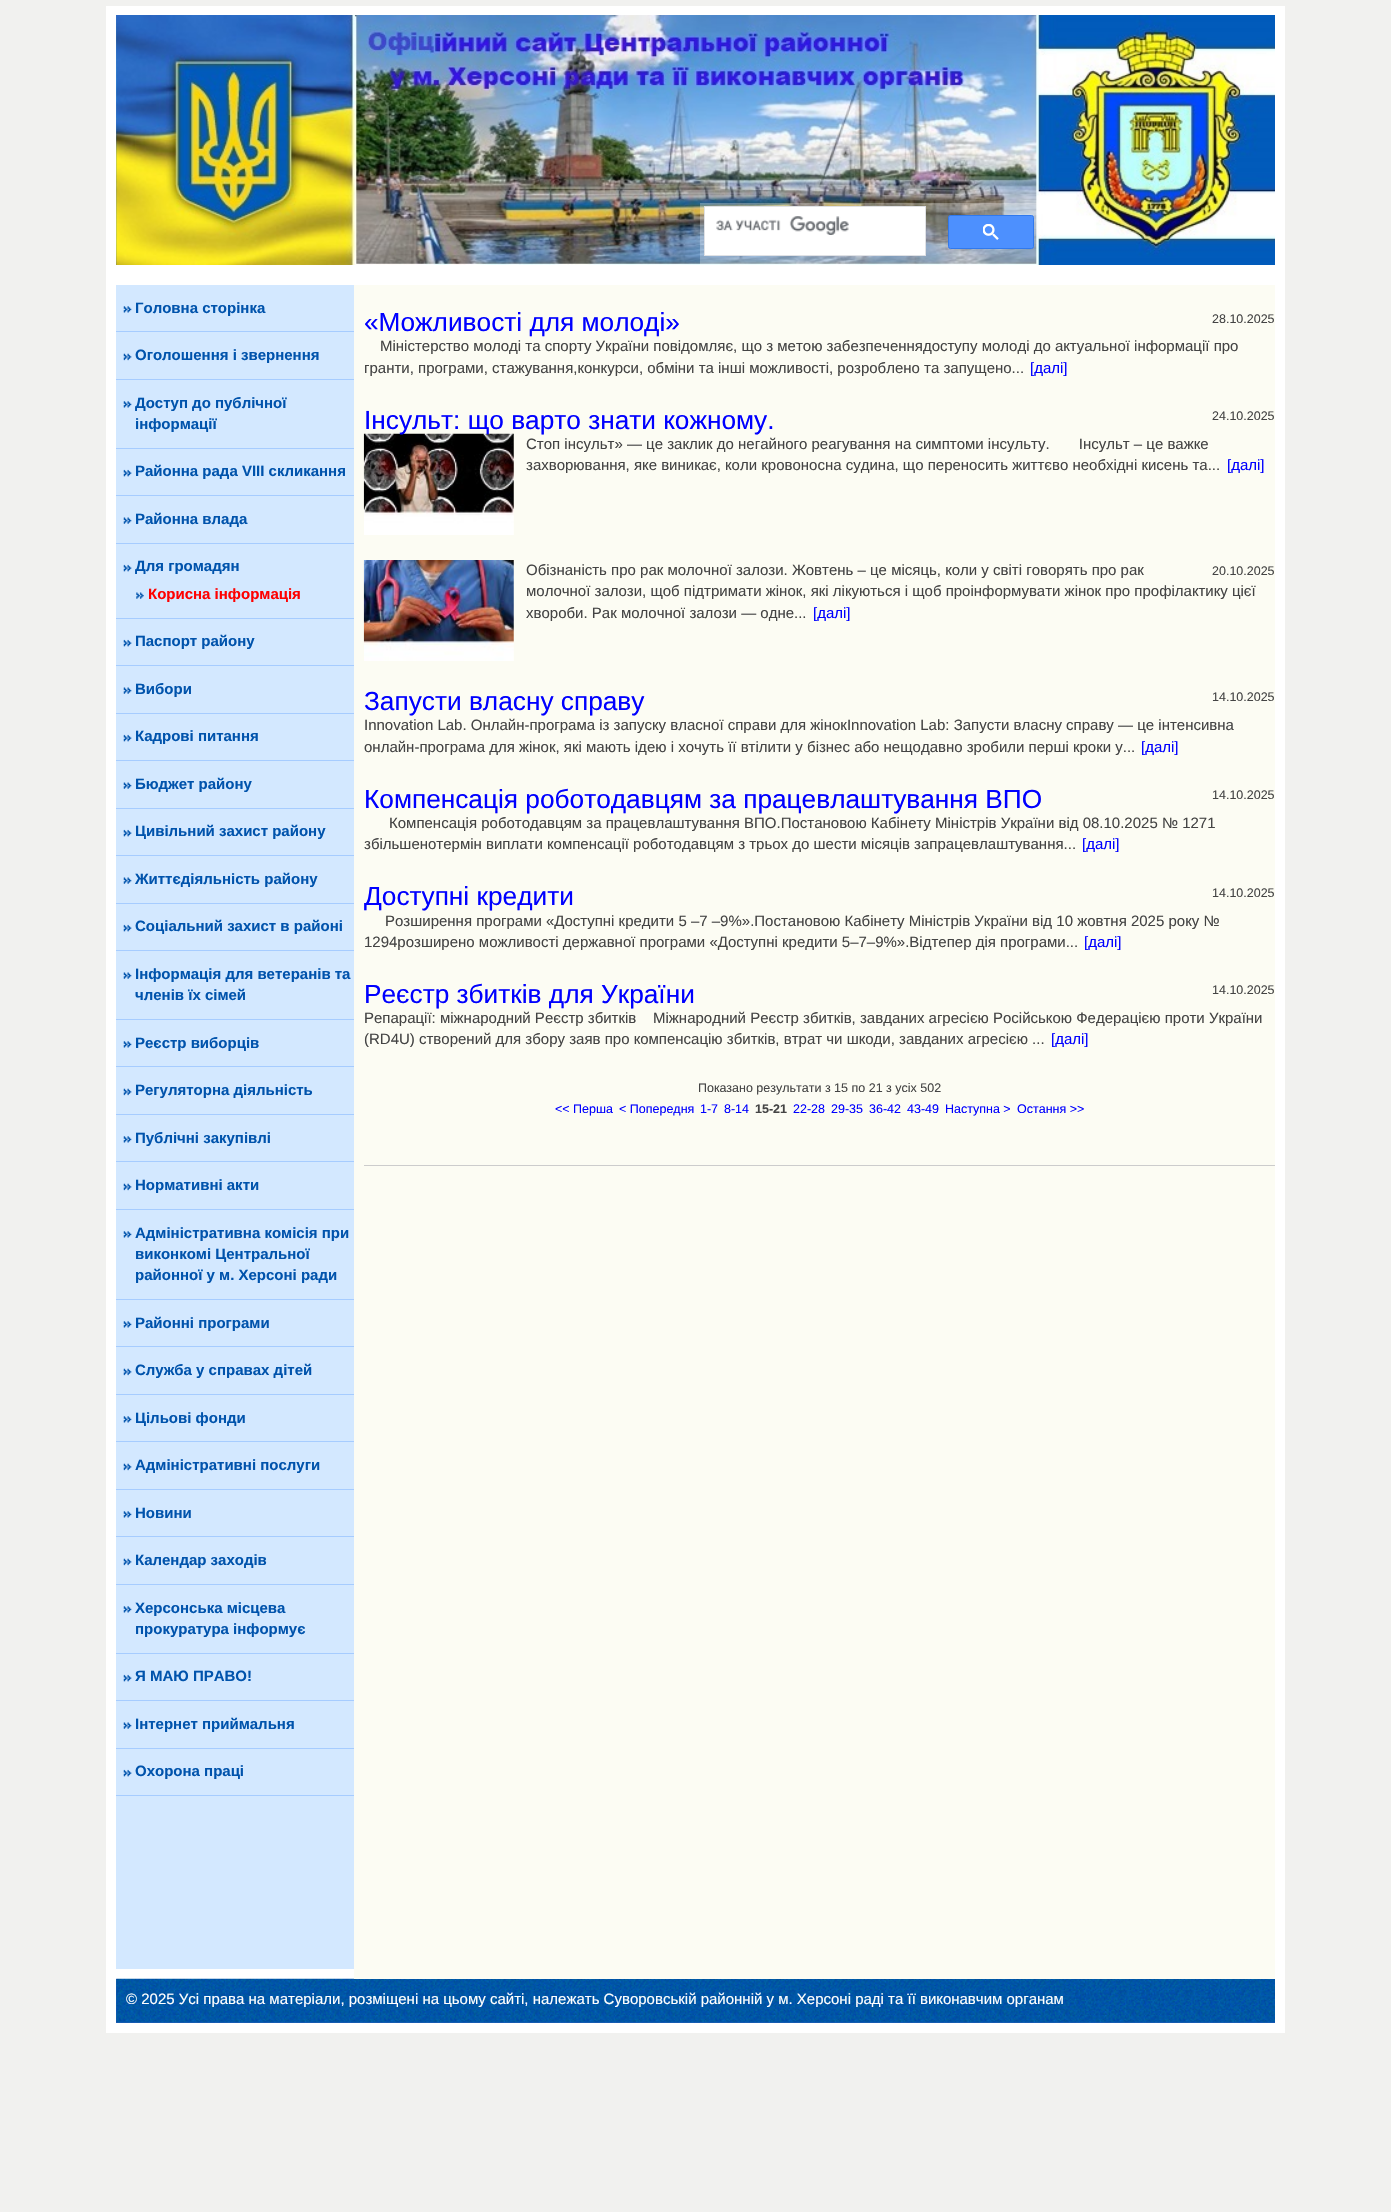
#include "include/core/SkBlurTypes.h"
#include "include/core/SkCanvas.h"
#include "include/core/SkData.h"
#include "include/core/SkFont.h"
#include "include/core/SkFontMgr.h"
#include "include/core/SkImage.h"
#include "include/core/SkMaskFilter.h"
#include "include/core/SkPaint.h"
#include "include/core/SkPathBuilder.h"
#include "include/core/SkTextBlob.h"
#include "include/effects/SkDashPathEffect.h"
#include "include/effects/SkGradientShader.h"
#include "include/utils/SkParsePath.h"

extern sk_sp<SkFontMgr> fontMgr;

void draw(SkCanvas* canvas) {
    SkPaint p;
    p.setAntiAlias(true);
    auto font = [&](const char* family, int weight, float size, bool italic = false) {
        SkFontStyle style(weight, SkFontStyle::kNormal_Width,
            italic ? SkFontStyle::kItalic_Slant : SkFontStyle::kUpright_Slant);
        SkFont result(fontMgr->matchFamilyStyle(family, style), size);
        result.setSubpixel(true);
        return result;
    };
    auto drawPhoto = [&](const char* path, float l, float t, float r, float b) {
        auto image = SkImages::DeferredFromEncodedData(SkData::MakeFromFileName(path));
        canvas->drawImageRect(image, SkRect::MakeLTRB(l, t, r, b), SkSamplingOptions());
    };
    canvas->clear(0xFFF1F1EF);
    p.setColor(0xFFFFFFFF);
    canvas->drawRect(SkRect::MakeLTRB(106, 6, 1285, 2033), p);
    drawPhoto("media/1.png", 116, 15, 117, 265);
    drawPhoto("media/2.png", 116, 15, 1275, 265);
    p.setColor(0x4AFFFFFF);
    canvas->drawRect(SkRect::MakeLTRB(700, 203, 1038, 265), p);
    p.setColor(0xFFFFFFFF);
    canvas->drawRect(SkRect::MakeLTRB(704.5f, 206.5f, 925.5f, 255.5f), p);
    p.setStyle(SkPaint::kStroke_Style);
    p.setStrokeWidth(1);
    p.setColor(0xFFDFE1E5);
    canvas->drawRect(SkRect::MakeLTRB(704.5f, 206.5f, 925.5f, 255.5f), p);
    drawPhoto("media/3.png", 716, 216, 849, 235);
    p.setStyle(SkPaint::kFill_Style);
    p.setColor(0xFF4D90FE);
    canvas->drawRoundRect(SkRect::MakeLTRB(948.5f, 215.5f, 1033.5f, 248.5f), 2, 2, p);
    p.setStyle(SkPaint::kStroke_Style);
    p.setColor(0xFF3079ED);
    canvas->drawRoundRect(SkRect::MakeLTRB(948.5f, 215.5f, 1033.5f, 248.5f), 2, 2, p);
    drawPhoto("media/4.png", 983, 224, 999, 240);
    p.setStyle(SkPaint::kFill_Style);
    p.setColor(0xFFD3E8FF);
    canvas->drawRect(SkRect::MakeLTRB(116, 285, 354, 1969), p);
    drawPhoto("media/5.png", 123, 306, 132, 313);
    p.setColor(0xFFA6CCFF);
    canvas->drawRect(SkRect::MakeLTRB(116, 331, 354, 332), p);
    auto font1 = font("Liberation Sans", 700, 15);
    p.setColor(0xFF0053AC);
    canvas->drawString("Головна сторінка", 135, 313, font1, p);
    drawPhoto("media/6.png", 123, 353, 132, 361);
    p.setColor(0xFFA6CCFF);
    canvas->drawRect(SkRect::MakeLTRB(116, 379, 354, 380), p);
    p.setColor(0xFF0053AC);
    canvas->drawString("Оголошення і звернення", 135, 360, font1, p);
    drawPhoto("media/5.png", 123, 401, 132, 408);
    p.setColor(0xFFA6CCFF);
    canvas->drawRect(SkRect::MakeLTRB(116, 448, 354, 449), p);
    p.setColor(0xFF0053AC);
    canvas->drawString("Доступ до публічної", 135, 408, font1, p);
    canvas->drawString("інформації", 135, 429, font1, p);
    drawPhoto("media/7.png", 123, 469, 132, 477);
    p.setColor(0xFFA6CCFF);
    canvas->drawRect(SkRect::MakeLTRB(116, 495, 354, 496), p);
    p.setColor(0xFF0053AC);
    canvas->drawString("Районна рада VIII скликання", 135, 476, font1, p);
    drawPhoto("media/8.png", 123, 517, 132, 524);
    p.setColor(0xFFA6CCFF);
    canvas->drawRect(SkRect::MakeLTRB(116, 543, 354, 544), p);
    p.setColor(0xFF0053AC);
    canvas->drawString("Районна влада", 135, 524, font1, p);
    drawPhoto("media/7.png", 123, 564, 132, 572);
    p.setColor(0xFFA6CCFF);
    canvas->drawRect(SkRect::MakeLTRB(116, 618, 354, 619), p);
    p.setColor(0xFF0053AC);
    canvas->drawString("Для громадян", 135, 571, font1, p);
    drawPhoto("media/9.png", 136, 592, 144, 599);
    p.setColor(0xFFFF0000);
    canvas->drawString("Корисна інформація", 148, 599, font1, p);
    drawPhoto("media/7.png", 123, 639, 132, 647);
    p.setColor(0xFFA6CCFF);
    canvas->drawRect(SkRect::MakeLTRB(116, 665, 354, 666), p);
    p.setColor(0xFF0053AC);
    canvas->drawString("Паспорт району", 135, 646, font1, p);
    drawPhoto("media/8.png", 123, 687, 132, 694);
    p.setColor(0xFFA6CCFF);
    canvas->drawRect(SkRect::MakeLTRB(116, 713, 354, 714), p);
    p.setColor(0xFF0053AC);
    canvas->drawString("Вибори", 135, 694, font1, p);
    drawPhoto("media/7.png", 123, 734, 132, 742);
    p.setColor(0xFFA6CCFF);
    canvas->drawRect(SkRect::MakeLTRB(116, 760, 354, 761), p);
    p.setColor(0xFF0053AC);
    canvas->drawString("Кадрові питання", 135, 741, font1, p);
    drawPhoto("media/10.png", 123, 782, 132, 789);
    p.setColor(0xFFA6CCFF);
    canvas->drawRect(SkRect::MakeLTRB(116, 808, 354, 809), p);
    p.setColor(0xFF0053AC);
    canvas->drawString("Бюджет району", 135, 789, font1, p);
    drawPhoto("media/7.png", 123, 829, 132, 837);
    p.setColor(0xFFA6CCFF);
    canvas->drawRect(SkRect::MakeLTRB(116, 855, 354, 856), p);
    p.setColor(0xFF0053AC);
    canvas->drawString("Цивільний захист району", 135, 836, font1, p);
    drawPhoto("media/8.png", 123, 877, 132, 884);
    p.setColor(0xFFA6CCFF);
    canvas->drawRect(SkRect::MakeLTRB(116, 903, 354, 904), p);
    p.setColor(0xFF0053AC);
    canvas->drawString("Життєдіяльність району", 135, 884, font1, p);
    drawPhoto("media/7.png", 123, 924, 132, 932);
    p.setColor(0xFFA6CCFF);
    canvas->drawRect(SkRect::MakeLTRB(116, 950, 354, 951), p);
    p.setColor(0xFF0053AC);
    canvas->drawString("Соціальний захист в районі", 135, 931, font1, p);
    drawPhoto("media/8.png", 123, 972, 132, 979);
    p.setColor(0xFFA6CCFF);
    canvas->drawRect(SkRect::MakeLTRB(116, 1019, 354, 1020), p);
    p.setColor(0xFF0053AC);
    canvas->drawString("Інформація для ветеранів та", 135, 979, font1, p);
    canvas->drawString("членів їх сімей", 135, 1000, font1, p);
    drawPhoto("media/5.png", 123, 1041, 132, 1048);
    p.setColor(0xFFA6CCFF);
    canvas->drawRect(SkRect::MakeLTRB(116, 1066, 354, 1067), p);
    p.setColor(0xFF0053AC);
    canvas->drawString("Реєстр виборців", 135, 1048, font1, p);
    drawPhoto("media/6.png", 123, 1088, 132, 1096);
    p.setColor(0xFFA6CCFF);
    canvas->drawRect(SkRect::MakeLTRB(116, 1114, 354, 1115), p);
    p.setColor(0xFF0053AC);
    canvas->drawString("Регуляторна діяльність", 135, 1095, font1, p);
    drawPhoto("media/5.png", 123, 1136, 132, 1143);
    p.setColor(0xFFA6CCFF);
    canvas->drawRect(SkRect::MakeLTRB(116, 1161, 354, 1162), p);
    p.setColor(0xFF0053AC);
    canvas->drawString("Публічні закупівлі", 135, 1143, font1, p);
    drawPhoto("media/6.png", 123, 1183, 132, 1191);
    p.setColor(0xFFA6CCFF);
    canvas->drawRect(SkRect::MakeLTRB(116, 1209, 354, 1210), p);
    p.setColor(0xFF0053AC);
    canvas->drawString("Нормативні акти", 135, 1190, font1, p);
    drawPhoto("media/5.png", 123, 1231, 132, 1238);
    p.setColor(0xFFA6CCFF);
    canvas->drawRect(SkRect::MakeLTRB(116, 1299, 354, 1300), p);
    p.setColor(0xFF0053AC);
    {
        const struct { const char* s; float x, y; } items[] = {
            {"Адміністративна комісія при", 135, 1238},
            {"виконкомі Центральної", 135, 1259},
            {"районної у м. Херсоні ради", 135, 1280},
        };
        for (auto [s, x, y] : items) {
            canvas->drawString(s, x, y, font1, p);
        }
    }
    drawPhoto("media/5.png", 123, 1321, 132, 1328);
    p.setColor(0xFFA6CCFF);
    canvas->drawRect(SkRect::MakeLTRB(116, 1346, 354, 1347), p);
    p.setColor(0xFF0053AC);
    canvas->drawString("Районні програми", 135, 1328, font1, p);
    drawPhoto("media/6.png", 123, 1368, 132, 1376);
    p.setColor(0xFFA6CCFF);
    canvas->drawRect(SkRect::MakeLTRB(116, 1394, 354, 1395), p);
    p.setColor(0xFF0053AC);
    canvas->drawString("Служба у справах дітей", 135, 1375, font1, p);
    drawPhoto("media/5.png", 123, 1416, 132, 1423);
    p.setColor(0xFFA6CCFF);
    canvas->drawRect(SkRect::MakeLTRB(116, 1441, 354, 1442), p);
    p.setColor(0xFF0053AC);
    canvas->drawString("Цільові фонди", 135, 1423, font1, p);
    drawPhoto("media/6.png", 123, 1463, 132, 1471);
    p.setColor(0xFFA6CCFF);
    canvas->drawRect(SkRect::MakeLTRB(116, 1489, 354, 1490), p);
    p.setColor(0xFF0053AC);
    canvas->drawString("Адміністративні послуги", 135, 1470, font1, p);
    drawPhoto("media/5.png", 123, 1511, 132, 1518);
    p.setColor(0xFFA6CCFF);
    canvas->drawRect(SkRect::MakeLTRB(116, 1536, 354, 1537), p);
    p.setColor(0xFF0053AC);
    canvas->drawString("Новини", 135, 1518, font1, p);
    drawPhoto("media/6.png", 123, 1558, 132, 1566);
    p.setColor(0xFFA6CCFF);
    canvas->drawRect(SkRect::MakeLTRB(116, 1584, 354, 1585), p);
    p.setColor(0xFF0053AC);
    canvas->drawString("Календар заходів", 135, 1565, font1, p);
    drawPhoto("media/5.png", 123, 1606, 132, 1613);
    p.setColor(0xFFA6CCFF);
    canvas->drawRect(SkRect::MakeLTRB(116, 1653, 354, 1654), p);
    p.setColor(0xFF0053AC);
    canvas->drawString("Херсонська місцева", 135, 1613, font1, p);
    canvas->drawString("прокуратура інформує", 135, 1634, font1, p);
    drawPhoto("media/7.png", 123, 1674, 132, 1682);
    p.setColor(0xFFA6CCFF);
    canvas->drawRect(SkRect::MakeLTRB(116, 1700, 354, 1701), p);
    p.setColor(0xFF0053AC);
    canvas->drawString("Я МАЮ ПРАВО!", 135, 1681, font1, p);
    drawPhoto("media/8.png", 123, 1722, 132, 1729);
    p.setColor(0xFFA6CCFF);
    canvas->drawRect(SkRect::MakeLTRB(116, 1748, 354, 1749), p);
    p.setColor(0xFF0053AC);
    canvas->drawString("Інтернет приймальня", 135, 1729, font1, p);
    drawPhoto("media/7.png", 123, 1769, 132, 1777);
    p.setColor(0xFFA6CCFF);
    canvas->drawRect(SkRect::MakeLTRB(116, 1795, 354, 1796), p);
    p.setColor(0xFF0053AC);
    canvas->drawString("Охорона праці", 135, 1776, font1, p);
    p.setColor(0xFF2B60BB);
    canvas->drawRect(SkRect::MakeLTRB(116, 1979, 1275, 2023), p);
    drawPhoto("media/13.png", 116, 1978, 1275, 2023);
    p.setColor(0xFFFCFCF3);
    canvas->drawRect(SkRect::MakeLTRB(354, 285, 1275, 1979), p);
    auto font2 = font("Liberation Sans", 400, 26.25f);
    p.setColor(0xFF0000FF);
    canvas->drawString("«Можливості для молоді»", 364, 331, font2, p);
    auto font3 = font("Liberation Sans", 400, 12.5f);
    p.setColor(0xFF444444);
    canvas->drawString("28.10.2025", 1212, 323, font3, p);
    auto font4 = font("Liberation Sans", 400, 15);
    canvas->drawString("Міністерство молоді та спорту України повідомляє, що з метою забезпеченнядоступу молоді до актуальної інформації про", 380, 351, font4, p);
    canvas->drawString("гранти, програми, стажування,конкурси, обміни та інші можливості, розроблено та запущено...", 364, 373, font4, p);
    p.setColor(0xFF0000FF);
    canvas->drawString("[далі]", 1030, 373, font4, p);
    drawPhoto("media/11.png", 363, 433, 514, 535);
    canvas->drawString("Інсульт: що варто знати кожному.", 364, 429, font2, p);
    p.setColor(0xFF444444);
    canvas->drawString("24.10.2025", 1212, 420, font3, p);
    canvas->drawString("Стоп інсульт» — це заклик до негайного реагування на симптоми інсульту.       Інсульт – це важке", 526, 449, font4, p);
    canvas->drawString("захворювання, яке виникає, коли кровоносна судина, що переносить життєво необхідні кисень та...", 526, 470, font4, p);
    p.setColor(0xFF0000FF);
    canvas->drawString("[далі]", 1227, 470, font4, p);
    drawPhoto("media/12.png", 363, 560, 514, 661);
    p.setColor(0xFF444444);
    {
        const struct { const char* s; float x, y; } items[] = {
            {"Обізнаність про рак молочної залози. Жовтень – це місяць, коли у світі говорять про рак", 526, 575},
            {"молочної залози, щоб підтримати жінок, які лікуються і щоб проінформувати жінок про профілактику цієї", 526, 596},
            {"хвороби. Рак молочної залози — одне...", 526, 618},
        };
        for (auto [s, x, y] : items) {
            canvas->drawString(s, x, y, font4, p);
        }
    }
    p.setColor(0xFF0000FF);
    canvas->drawString("[далі]", 813, 618, font4, p);
    p.setColor(0xFF444444);
    canvas->drawString("20.10.2025", 1212, 575, font3, p);
    p.setColor(0xFF0000FF);
    canvas->drawString("Запусти власну справу", 364, 710, font2, p);
    p.setColor(0xFF444444);
    canvas->drawString("14.10.2025", 1212, 701, font3, p);
    canvas->drawString("Innovation Lab. Онлайн-програма із запуску власної справи для жінокInnovation Lab: Запусти власну справу — це інтенсивна", 364, 730, font4, p);
    canvas->drawString("онлайн-програма для жінок, які мають ідею і хочуть її втілити у бізнес або нещодавно зробили перші кроки у...", 364, 752, font4, p);
    p.setColor(0xFF0000FF);
    canvas->drawString("[далі]", 1141, 752, font4, p);
    canvas->drawString("Компенсація роботодавцям за працевлаштування ВПО", 364, 808, font2, p);
    p.setColor(0xFF444444);
    canvas->drawString("14.10.2025", 1212, 799, font3, p);
    canvas->drawString("Компенсація роботодавцям за працевлаштування ВПО.Постановою Кабінету Міністрів України від 08.10.2025 № 1271", 389, 828, font4, p);
    canvas->drawString("збільшенотермін виплати компенсації роботодавцям з трьох до шести місяців запрацевлаштування...", 364, 849, font4, p);
    p.setColor(0xFF0000FF);
    canvas->drawString("[далі]", 1082, 849, font4, p);
    canvas->drawString("Доступні кредити", 364, 905, font2, p);
    p.setColor(0xFF444444);
    canvas->drawString("14.10.2025", 1212, 897, font3, p);
    canvas->drawString("Розширення програми «Доступні кредити 5 –7 –9%».Постановою Кабінету Міністрів України від 10 жовтня 2025 року №", 385, 926, font4, p);
    canvas->drawString("1294розширено можливості державної програми «Доступні кредити 5–7–9%».Відтепер дія програми...", 364, 947, font4, p);
    p.setColor(0xFF0000FF);
    canvas->drawString("[далі]", 1084, 947, font4, p);
    canvas->drawString("Реєстр збитків для України", 364, 1003, font2, p);
    p.setColor(0xFF444444);
    canvas->drawString("14.10.2025", 1212, 994, font3, p);
    canvas->drawString("Репарації: міжнародний Реєстр збитків    Міжнародний Реєстр збитків, завданих агресією Російською Федерацією проти України", 364, 1023, font4, p);
    canvas->drawString("(RD4U) створений для збору заяв про компенсацію збитків, втрат чи шкоди, завданих агресією ...", 364, 1044, font4, p);
    p.setColor(0xFF0000FF);
    canvas->drawString("[далі]", 1051, 1044, font4, p);
    p.setColor(0xFF444444);
    canvas->drawString("Показано результати з 15 по 21 з усіх 502", 698, 1092, font3, p);
    p.setColor(0xFF0000FF);
    {
        const struct { const char* s; float x, y; } items[] = {
            {"<< Перша", 555, 1113},
            {"< Попередня", 619, 1113},
            {"1-7", 700, 1113},
            {"8-14", 724, 1113},
        };
        for (auto [s, x, y] : items) {
            canvas->drawString(s, x, y, font3, p);
        }
    }
    auto font5 = font("Liberation Sans", 700, 12.5f);
    p.setColor(0xFF444444);
    canvas->drawString("15-21", 755, 1113, font5, p);
    p.setColor(0xFF0000FF);
    {
        const struct { const char* s; float x, y; } items[] = {
            {"22-28", 793, 1113},
            {"29-35", 831, 1113},
            {"36-42", 869, 1113},
            {"43-49", 907, 1113},
            {"Наступна >", 945, 1113},
            {"Остання >>", 1017, 1113},
        };
        for (auto [s, x, y] : items) {
            canvas->drawString(s, x, y, font3, p);
        }
    }
    p.setColor(0xFFCCCCCC);
    canvas->drawRect(SkRect::MakeLTRB(364, 1165, 1275, 1166), p);
    p.setColor(0xFFFFFFFF);
    canvas->drawString("© 2025 Усі права на матеріали, розміщені на цьому сайті, належать Суворовській районній у м. Херсоні раді та її виконавчим органам", 126, 2004, font4, p);
}
